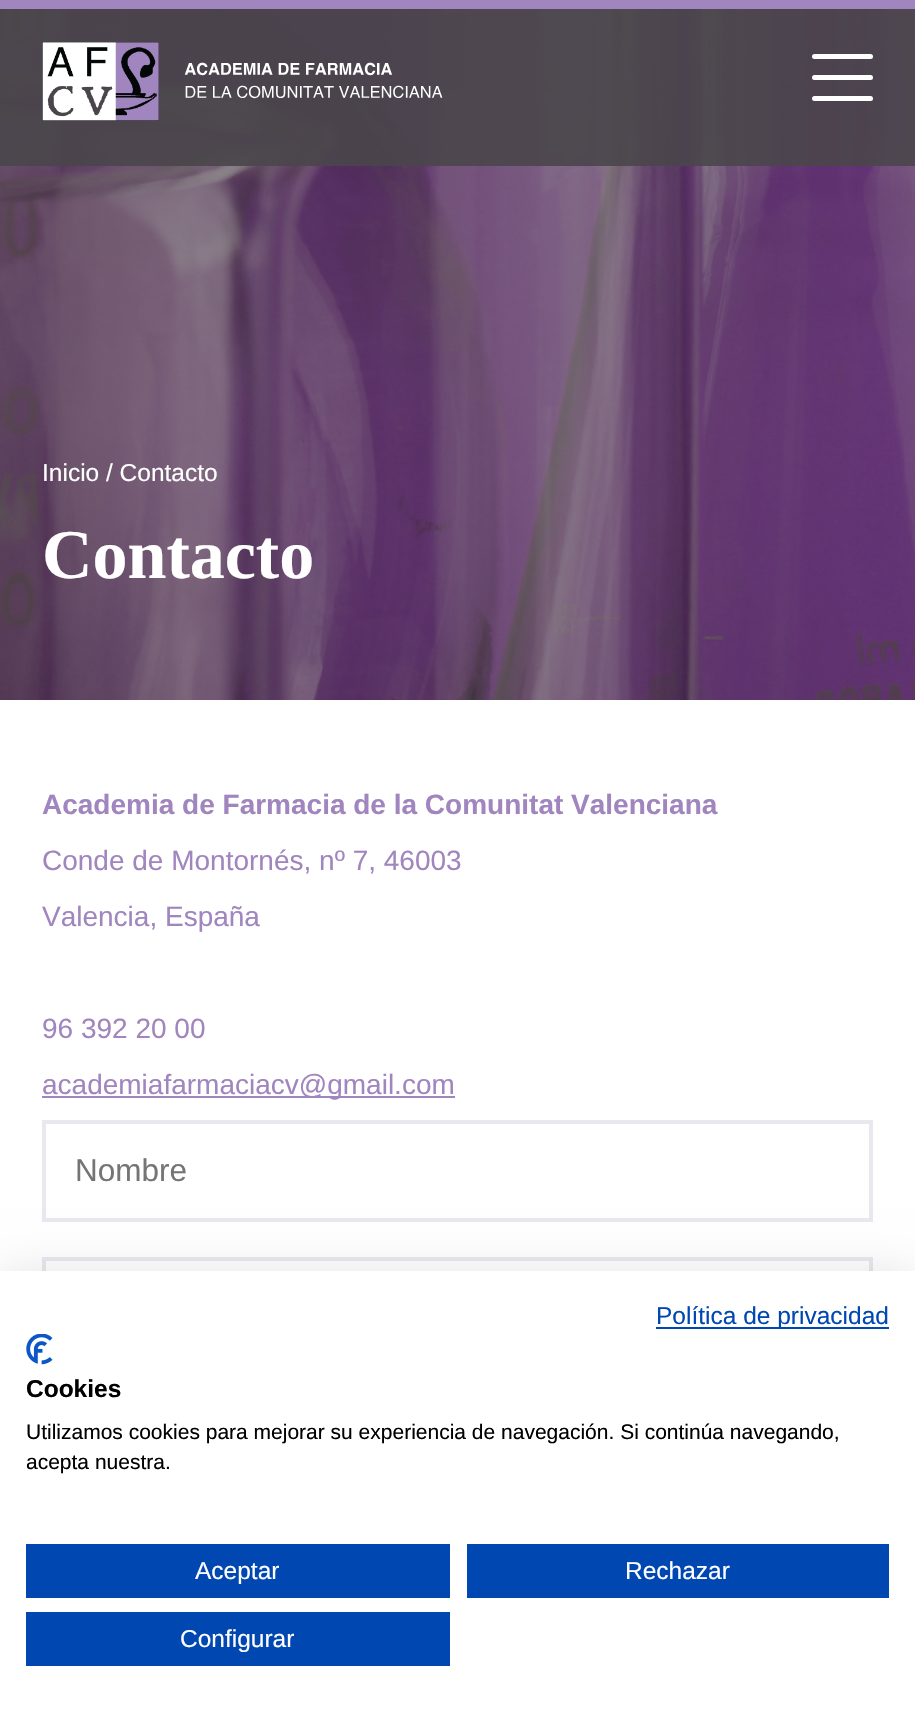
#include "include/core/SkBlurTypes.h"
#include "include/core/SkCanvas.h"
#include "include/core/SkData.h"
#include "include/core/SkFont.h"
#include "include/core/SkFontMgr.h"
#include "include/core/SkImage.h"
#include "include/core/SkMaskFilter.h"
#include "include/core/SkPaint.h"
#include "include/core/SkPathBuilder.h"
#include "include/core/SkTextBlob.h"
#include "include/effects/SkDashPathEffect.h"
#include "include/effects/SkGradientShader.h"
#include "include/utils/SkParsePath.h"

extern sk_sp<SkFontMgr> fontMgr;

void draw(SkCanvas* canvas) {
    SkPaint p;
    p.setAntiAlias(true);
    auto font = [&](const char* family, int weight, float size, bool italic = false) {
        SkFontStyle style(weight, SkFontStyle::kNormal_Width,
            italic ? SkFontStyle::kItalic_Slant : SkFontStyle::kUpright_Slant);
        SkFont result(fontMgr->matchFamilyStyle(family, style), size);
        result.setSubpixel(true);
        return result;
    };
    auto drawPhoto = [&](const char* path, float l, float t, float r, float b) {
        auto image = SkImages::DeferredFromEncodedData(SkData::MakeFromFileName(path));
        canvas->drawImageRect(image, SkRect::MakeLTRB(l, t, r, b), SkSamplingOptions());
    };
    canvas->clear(0xFFFFFFFF);
    drawPhoto("media/2.png", 0, 9, 915, 700);
    p.setColor(0xE649454A);
    canvas->drawRect(SkRect::MakeLTRB(0, 9, 915, 166), p);
    p.setColor(0xFFA085BE);
    canvas->drawRect(SkRect::MakeLTRB(0, 0, 915, 9), p);
    drawPhoto("media/1.png", 42, 42, 443, 121);
    p.setColor(0xFFFFFFFF);
    canvas->drawRoundRect(SkRect::MakeLTRB(812, 54, 873, 59), 2.5f, 2.5f, p);
    canvas->drawRoundRect(SkRect::MakeLTRB(812, 75, 873, 80), 2.5f, 2.5f, p);
    canvas->drawRoundRect(SkRect::MakeLTRB(812, 96, 873, 101), 2.5f, 2.5f, p);
    auto font1 = font("Liberation Sans", 400, 24.5f);
    canvas->drawString("Inicio / Contacto", 42, 481, font1, p);
    auto font2 = font("Liberation Serif", 700, 70);
    canvas->drawString("Contacto", 42, 578, font2, p);
    auto font3 = font("Liberation Sans", 700, 28);
    p.setColor(0xFFA085BE);
    canvas->drawString("Academia de Farmacia de la Comunitat Valenciana", 42, 814, font3, p);
    auto font4 = font("Liberation Sans", 400, 28);
    {
        const struct { const char* s; float x, y; } items[] = {
            {"Conde de Montornés, nº 7, 46003", 42, 870},
            {"Valencia, España", 42, 926},
            {"96 392 20 00", 42, 1038},
        };
        for (auto [s, x, y] : items) {
            canvas->drawString(s, x, y, font4, p);
        }
    }
    canvas->drawRect(SkRect::MakeLTRB(42, 1096, 455, 1098), p);
    canvas->drawString("academiafarmaciacv@gmail.com", 42, 1094, font4, p);
    p.setStyle(SkPaint::kStroke_Style);
    p.setStrokeWidth(4);
    p.setColor(0xFFEBE7EF);
    canvas->drawRect(SkRect::MakeLTRB(44, 1122, 871, 1220), p);
    auto font5 = font("Liberation Sans", 400, 31.5f);
    p.setStyle(SkPaint::kFill_Style);
    p.setColor(0xFF757575);
    canvas->drawString("Nombre", 75, 1181, font5, p);
    p.setStyle(SkPaint::kStroke_Style);
    p.setColor(0xFFEBE7EF);
    canvas->drawRect(SkRect::MakeLTRB(44, 1259, 871, 1356), p);
    p.setStyle(SkPaint::kFill_Style);
    p.setColor(0x1A000000);
    p.setMaskFilter(SkMaskFilter::MakeBlur(kNormal_SkBlurStyle, 21));
    canvas->drawRect(SkRect::MakeLTRB(0, 1271, 915, 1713), p);
    p.setMaskFilter(nullptr);
    p.setColor(0xFFFFFFFF);
    canvas->drawRect(SkRect::MakeLTRB(0, 1271, 915, 1712), p);
    p.setColor(0xFF0047B2);
    canvas->drawRect(SkRect::MakeLTRB(656, 1327, 889, 1329), p);
    canvas->drawString("Política de privacidad", 656, 1324, font1, p);
    drawPhoto("media/3.png", 26, 1334, 53, 1365);
    auto font6 = font("Liberation Sans", 700, 24.5f);
    p.setColor(0xFF000000);
    canvas->drawString("Cookies", 26, 1397, font6, p);
    auto font7 = font("Liberation Sans", 400, 21);
    canvas->drawString("Utilizamos cookies para mejorar su experiencia de navegación. Si continúa navegando,", 26, 1439, font7, p);
    canvas->drawString("acepta nuestra.", 26, 1469, font7, p);
    p.setColor(0xFF0047B2);
    canvas->drawRect(SkRect::MakeLTRB(26, 1544, 450, 1598), p);
    p.setColor(0xFFFFFFFF);
    canvas->drawString("Aceptar", 195, 1579, font1, p);
    p.setColor(0xFF0047B2);
    canvas->drawRect(SkRect::MakeLTRB(467, 1544, 889, 1598), p);
    p.setColor(0xFFFFFFFF);
    canvas->drawString("Rechazar", 625, 1579, font1, p);
    p.setColor(0xFF0047B2);
    canvas->drawRect(SkRect::MakeLTRB(26, 1612, 450, 1666), p);
    p.setColor(0xFFFFFFFF);
    canvas->drawString("Configurar", 180, 1647, font1, p);
}
